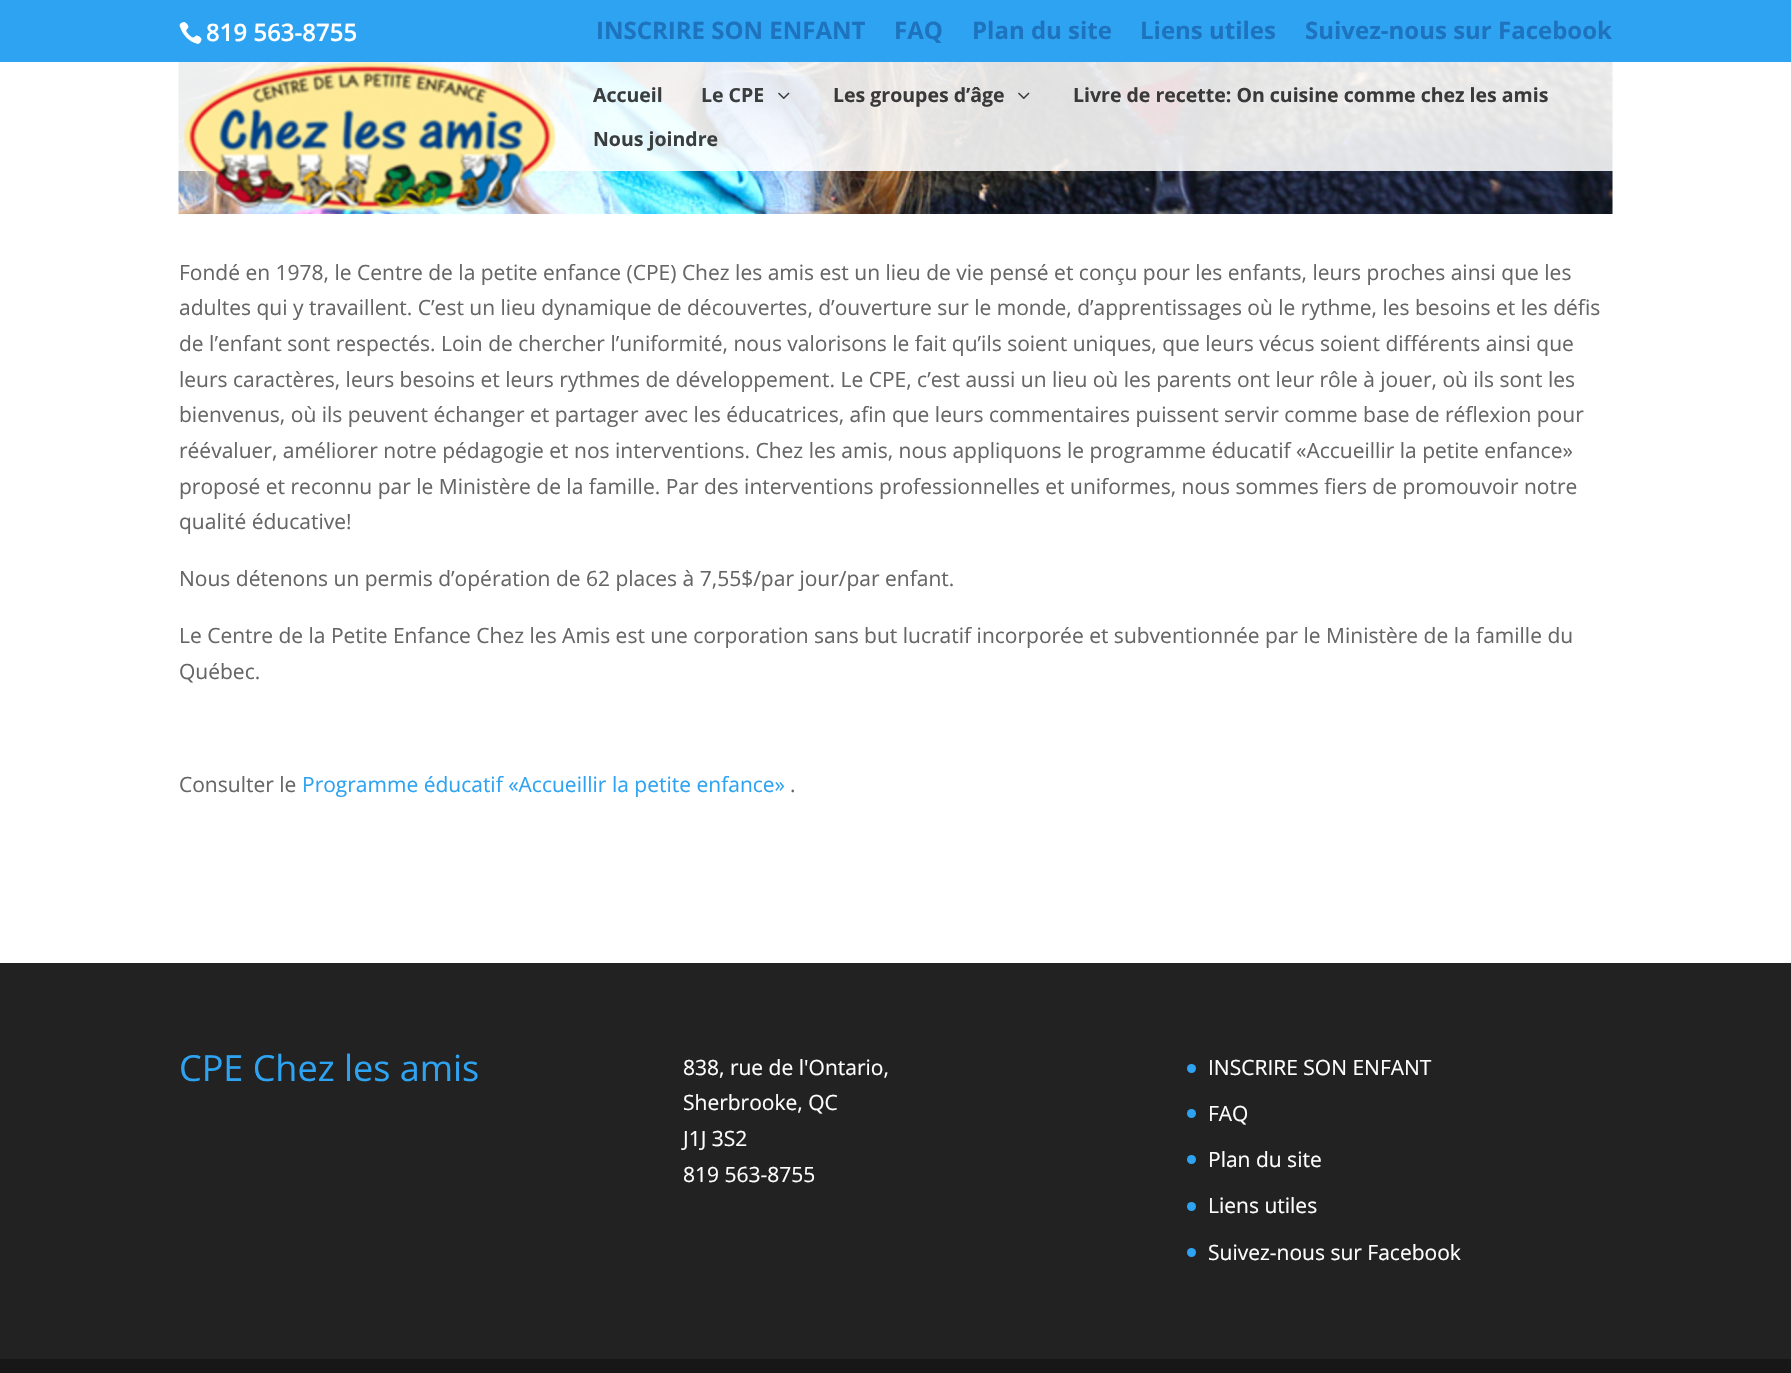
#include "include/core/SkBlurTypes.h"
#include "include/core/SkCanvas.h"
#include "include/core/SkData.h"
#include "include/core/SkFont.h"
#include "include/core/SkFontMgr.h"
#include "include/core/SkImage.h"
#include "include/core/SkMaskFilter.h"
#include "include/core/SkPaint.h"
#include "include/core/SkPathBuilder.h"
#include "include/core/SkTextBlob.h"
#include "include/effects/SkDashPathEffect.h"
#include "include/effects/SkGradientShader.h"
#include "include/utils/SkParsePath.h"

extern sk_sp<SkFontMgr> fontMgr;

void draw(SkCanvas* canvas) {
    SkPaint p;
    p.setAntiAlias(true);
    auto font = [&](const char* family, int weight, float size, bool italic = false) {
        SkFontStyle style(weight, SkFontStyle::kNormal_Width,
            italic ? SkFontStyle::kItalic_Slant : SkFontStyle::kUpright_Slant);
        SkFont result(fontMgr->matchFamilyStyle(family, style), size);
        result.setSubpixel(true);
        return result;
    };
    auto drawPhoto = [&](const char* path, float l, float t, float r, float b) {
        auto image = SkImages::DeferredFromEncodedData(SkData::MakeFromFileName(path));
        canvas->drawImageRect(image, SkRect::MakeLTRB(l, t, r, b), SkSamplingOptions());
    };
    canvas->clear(0xFFFFFFFF);
    p.setColor(0xFF2EA3F2);
    canvas->drawRect(SkRect::MakeLTRB(0, 0, 1791, 62), p);
    drawPhoto("media/1.png", 179, 22, 202, 44);
    auto font1 = font("Open Sans", 600, 24);
    p.setColor(0xFFFFFFFF);
    canvas->drawString("819 563-8755", 206, 41, font1, p);
    auto font2 = font("Open Sans", 700, 24);
    p.setColor(0xFF1E73BE);
    {
        const struct { const char* s; float x, y; } items[] = {
            {"INSCRIRE SON ENFANT", 596, 39},
            {"FAQ", 894, 39},
            {"Plan du site", 972, 39},
            {"Liens utiles", 1140, 39},
            {"Suivez-nous sur Facebook", 1305, 39},
        };
        for (auto [s, x, y] : items) {
            canvas->drawString(s, x, y, font2, p);
        }
    }
    drawPhoto("media/5.png", 178, 62, 1613, 214);
    p.setColor(0xDEFFFFFF);
    canvas->drawRect(SkRect::MakeLTRB(178, 62, 1613, 171), p);
    drawPhoto("media/2.png", 184, 62, 556, 212);
    auto font3 = font("Open Sans", 700, 19.5f);
    p.setColor(0xFF3B3E3F);
    canvas->drawString("Accueil", 593, 102, font3, p);
    canvas->drawString("Le CPE", 701, 102, font3, p);
    drawPhoto("media/3.png", 778, 92, 790, 99);
    p.setColor(0xFF3A3939);
    canvas->drawString("Les groupes d’âge", 833, 102, font3, p);
    drawPhoto("media/4.png", 1018, 92, 1030, 99);
    canvas->drawString("Livre de recette: On cuisine comme chez les amis", 1073, 102, font3, p);
    p.setColor(0xFF3B3E3F);
    canvas->drawString("Nous joindre", 593, 146, font3, p);
    auto font4 = font("Open Sans", 400, 21);
    p.setColor(0xFF666666);
    {
        const struct { const char* s; float x, y; } items[] = {
            {"Fondé en 1978, le Centre de la petite enfance (CPE) Chez les amis est un lieu de vie pensé et conçu pour les enfants, leurs proches ainsi que les", 179, 280},
            {"adultes qui y travaillent. C’est un lieu dynamique de découvertes, d’ouverture sur le monde, d’apprentissages où le rythme, les besoins et les défis", 179, 315},
            {"de l’enfant sont respectés. Loin de chercher l’uniformité, nous valorisons le fait qu’ils soient uniques, que leurs vécus soient différents ainsi que", 179, 351},
            {"leurs caractères, leurs besoins et leurs rythmes de développement. Le CPE, c’est aussi un lieu où les parents ont leur rôle à jouer, où ils sont les", 179, 387},
            {"bienvenus, où ils peuvent échanger et partager avec les éducatrices, afin que leurs commentaires puissent servir comme base de réflexion pour", 179, 422},
            {"réévaluer, améliorer notre pédagogie et nos interventions. Chez les amis, nous appliquons le programme éducatif «Accueillir la petite enfance»", 179, 458},
            {"proposé et reconnu par le Ministère de la famille. Par des interventions professionnelles et uniformes, nous sommes fiers de promouvoir notre", 179, 494},
            {"qualité éducative!", 179, 529},
            {"Nous détenons un permis d’opération de 62 places à 7,55$/par jour/par enfant.", 179, 586},
            {"Le Centre de la Petite Enfance Chez les Amis est une corporation sans but lucratif incorporée et subventionnée par le Ministère de la famille du", 179, 643},
            {"Québec.", 179, 679},
            {"Consulter le", 179, 792},
        };
        for (auto [s, x, y] : items) {
            canvas->drawString(s, x, y, font4, p);
        }
    }
    p.setColor(0xFF2EA3F2);
    canvas->drawString("Programme éducatif «Accueillir la petite enfance»", 302, 792, font4, p);
    p.setColor(0xFF666666);
    canvas->drawString(".", 790, 792, font4, p);
    p.setColor(0xFF222222);
    canvas->drawRect(SkRect::MakeLTRB(0, 963, 1791, 1359), p);
    auto font5 = font("Open Sans", 400, 36);
    p.setColor(0xFF2EA3F2);
    canvas->drawString("CPE Chez les amis", 179, 1081, font5, p);
    p.setColor(0xFFFFFFFF);
    {
        const struct { const char* s; float x, y; } items[] = {
            {"838, rue de l'Ontario,", 683, 1075},
            {"Sherbrooke, QC", 683, 1110},
            {"J1J 3S2", 683, 1146},
            {"819 563-8755", 683, 1182},
        };
        for (auto [s, x, y] : items) {
            canvas->drawString(s, x, y, font4, p);
        }
    }
    p.setColor(0xFF2EA3F2);
    canvas->drawCircle(1191.5f, 1068.5f, 4.5f, p);
    p.setColor(0xFFFFFFFF);
    canvas->drawString("INSCRIRE SON ENFANT", 1208, 1075, font4, p);
    p.setColor(0xFF2EA3F2);
    canvas->drawCircle(1191.5f, 1113.5f, 4.5f, p);
    p.setColor(0xFFFFFFFF);
    canvas->drawString("FAQ", 1208, 1121, font4, p);
    p.setColor(0xFF2EA3F2);
    canvas->drawCircle(1191.5f, 1159.5f, 4.5f, p);
    p.setColor(0xFFFFFFFF);
    canvas->drawString("Plan du site", 1208, 1167, font4, p);
    p.setColor(0xFF2EA3F2);
    canvas->drawCircle(1191.5f, 1206.5f, 4.5f, p);
    p.setColor(0xFFFFFFFF);
    canvas->drawString("Liens utiles", 1208, 1213, font4, p);
    p.setColor(0xFF2EA3F2);
    canvas->drawCircle(1191.5f, 1252.5f, 4.5f, p);
    p.setColor(0xFFFFFFFF);
    canvas->drawString("Suivez-nous sur Facebook", 1208, 1260, font4, p);
    p.setColor(0xFF171717);
    canvas->drawRect(SkRect::MakeLTRB(0, 1359, 1791, 1373), p);
}
